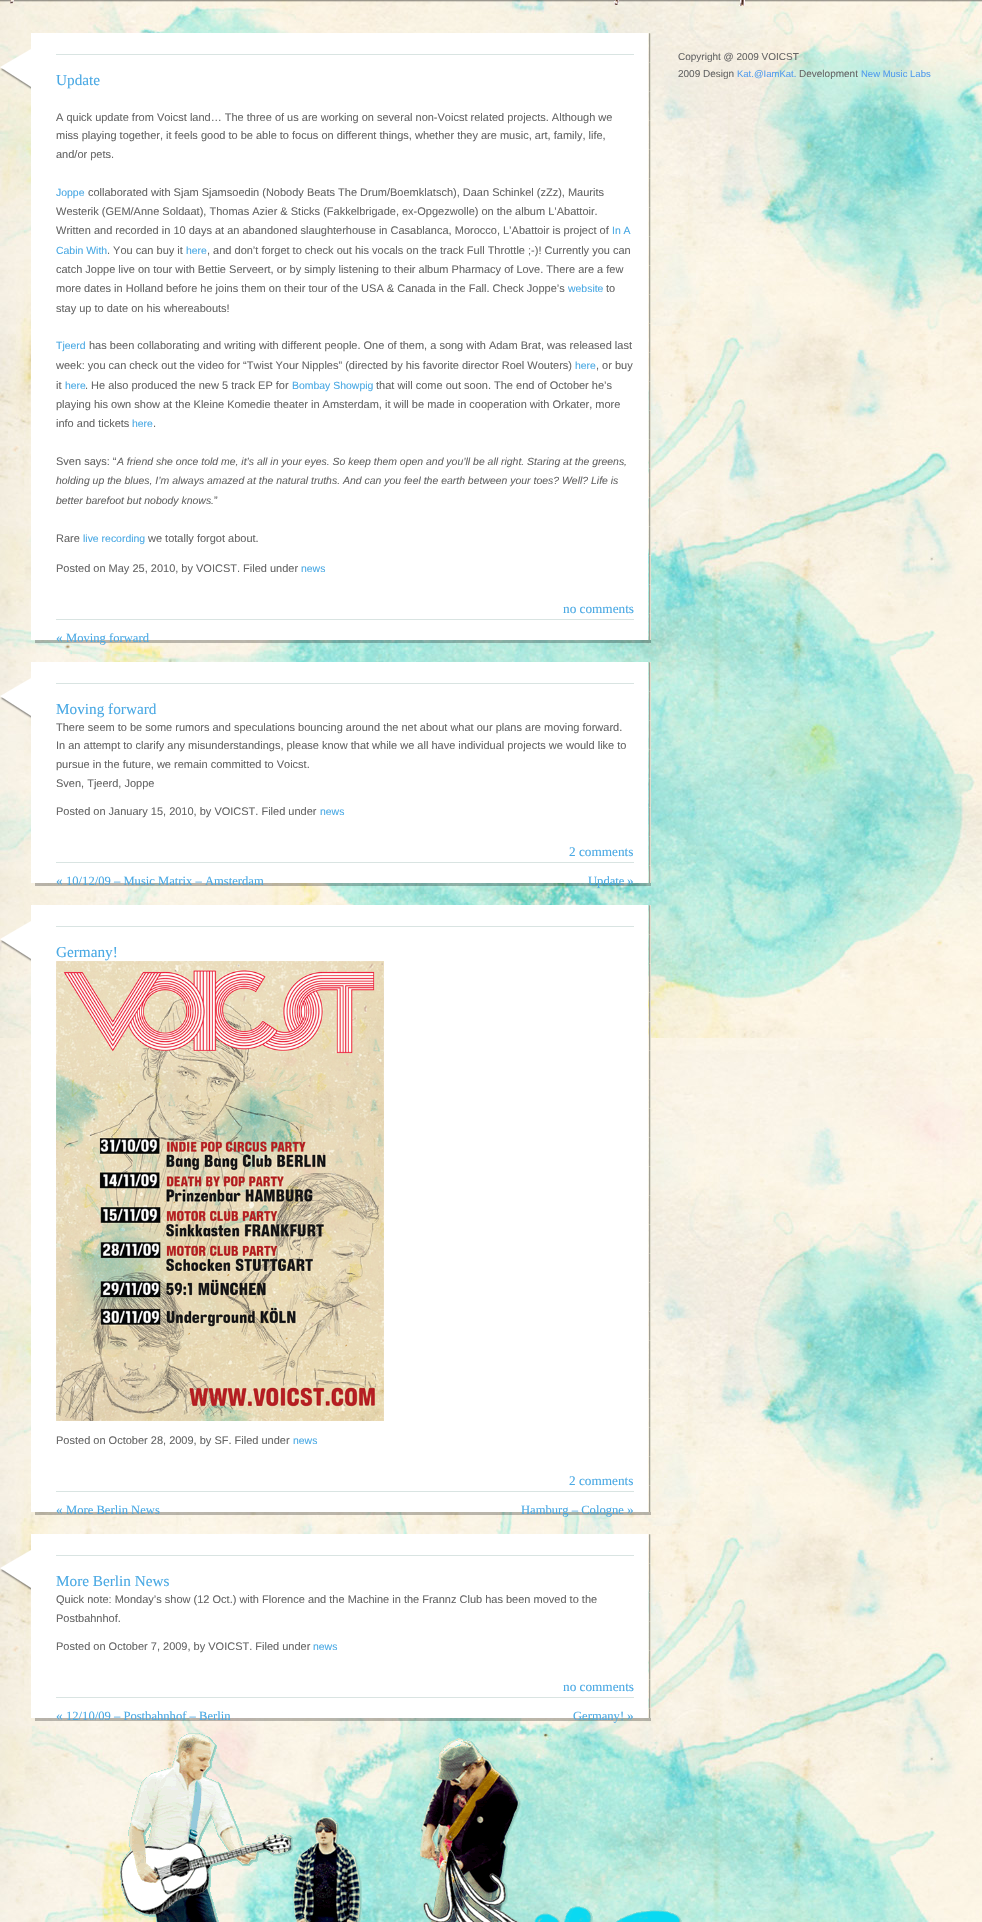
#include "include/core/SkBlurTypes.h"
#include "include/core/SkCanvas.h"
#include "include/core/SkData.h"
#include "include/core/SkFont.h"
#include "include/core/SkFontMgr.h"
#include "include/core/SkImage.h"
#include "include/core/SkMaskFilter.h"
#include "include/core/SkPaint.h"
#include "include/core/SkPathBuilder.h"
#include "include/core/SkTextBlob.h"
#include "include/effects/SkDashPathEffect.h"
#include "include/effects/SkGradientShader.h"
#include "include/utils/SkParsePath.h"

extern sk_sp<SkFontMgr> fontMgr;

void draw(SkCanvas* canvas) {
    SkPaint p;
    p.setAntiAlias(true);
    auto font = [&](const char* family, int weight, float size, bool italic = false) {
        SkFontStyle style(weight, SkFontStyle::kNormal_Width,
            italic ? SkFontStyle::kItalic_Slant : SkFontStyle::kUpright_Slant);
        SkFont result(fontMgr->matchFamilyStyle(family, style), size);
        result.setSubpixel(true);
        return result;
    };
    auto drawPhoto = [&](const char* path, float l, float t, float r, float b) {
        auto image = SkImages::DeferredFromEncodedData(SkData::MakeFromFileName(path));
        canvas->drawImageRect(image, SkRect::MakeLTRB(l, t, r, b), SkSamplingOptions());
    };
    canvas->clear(0xFFFFFFFF);
    drawPhoto("media/1.png", 0, 0, 982, 1922);
    drawPhoto("media/2.png", 0, 0, 982, 2);
    drawPhoto("media/3.png", 10, 0, 14, 4);
    drawPhoto("media/4.png", 614, 0, 619, 5);
    drawPhoto("media/5.png", 739, 0, 745, 6);
    auto font1 = font("Liberation Sans", 400, 10);
    p.setColor(0xFF666666);
    canvas->drawString("Copyright @ 2009 VOICST", 678, 60, font1, p);
    canvas->drawString("2009 Design", 678, 77, font1, p);
    auto font2 = font("Liberation Sans", 400, 9.5f);
    p.setColor(0xFF529CED);
    canvas->drawString("Kat.@IamKat.", 737, 77, font2, p);
    p.setColor(0xFF666666);
    canvas->drawString("Development", 799, 77, font1, p);
    p.setColor(0xFF529CED);
    canvas->drawString("New Music Labs", 861, 77, font2, p);
    drawPhoto("media/6.png", 0, 49, 31, 90);
    drawPhoto("media/7.png", 31, 33, 651, 640);
    p.setColor(0xFFD9E4E2);
    canvas->drawRect(SkRect::MakeLTRB(56, 54, 634, 55), p);
    auto font3 = font("Liberation Serif", 400, 15.25f);
    p.setColor(0xFF4AA9E4);
    canvas->drawString("Update", 56, 85, font3, p);
    auto font4 = font("Liberation Sans", 400, 11);
    p.setColor(0xFF666666);
    {
        const struct { const char* s; float x, y; } items[] = {
            {"A quick update from Voicst land… The three of us are working on several non-Voicst related projects. Although we", 56, 121},
            {"miss playing together, it feels good to be able to focus on different things, whether they are music, art, family, life,", 56, 139},
            {"and/or pets.", 56, 158},
        };
        for (auto [s, x, y] : items) {
            canvas->drawString(s, x, y, font4, p);
        }
    }
    auto font5 = font("Liberation Sans", 400, 10.45f);
    p.setColor(0xFF4AA9E4);
    canvas->drawString("Joppe", 56, 196, font5, p);
    p.setColor(0xFF666666);
    {
        const struct { const char* s; float x, y; } items[] = {
            {"collaborated with Sjam Sjamsoedin (Nobody Beats The Drum/Boemklatsch), Daan Schinkel (zZz), Maurits", 88, 196},
            {"Westerik (GEM/Anne Soldaat), Thomas Azier & Sticks (Fakkelbrigade, ex-Opgezwolle) on the album L’Abattoir.", 56, 215},
            {"Written and recorded in 10 days at an abandoned slaughterhouse in Casablanca, Morocco, L’Abattoir is project of", 56, 234},
        };
        for (auto [s, x, y] : items) {
            canvas->drawString(s, x, y, font4, p);
        }
    }
    p.setColor(0xFF4AA9E4);
    canvas->drawString("In A", 612, 234, font5, p);
    canvas->drawString("Cabin With", 56, 254, font5, p);
    p.setColor(0xFF666666);
    canvas->drawString(". You can buy it", 107, 254, font4, p);
    p.setColor(0xFF4AA9E4);
    canvas->drawString("here", 186, 254, font5, p);
    p.setColor(0xFF666666);
    {
        const struct { const char* s; float x, y; } items[] = {
            {", and don’t forget to check out his vocals on the track Full Throttle ;-)! Currently you can", 207, 254},
            {"catch Joppe live on tour with Bettie Serveert, or by simply listening to their album Pharmacy of Love. There are a few", 56, 273},
            {"more dates in Holland before he joins them on their tour of the USA & Canada in the Fall. Check Joppe’s", 56, 292},
        };
        for (auto [s, x, y] : items) {
            canvas->drawString(s, x, y, font4, p);
        }
    }
    p.setColor(0xFF4AA9E4);
    canvas->drawString("website", 568, 292, font5, p);
    p.setColor(0xFF666666);
    canvas->drawString("to", 606, 292, font4, p);
    canvas->drawString("stay up to date on his whereabouts!", 56, 312, font4, p);
    p.setColor(0xFF4AA9E4);
    canvas->drawString("Tjeerd", 56, 349, font5, p);
    p.setColor(0xFF666666);
    canvas->drawString("has been collaborating and writing with different people. One of them, a song with Adam Brat, was released last", 89, 349, font4, p);
    canvas->drawString("week: you can check out the video for “Twist Your Nipples” (directed by his favorite director Roel Wouters)", 56, 369, font4, p);
    p.setColor(0xFF4AA9E4);
    canvas->drawString("here", 575, 369, font5, p);
    p.setColor(0xFF666666);
    canvas->drawString(", or buy", 596, 369, font4, p);
    canvas->drawString("it", 56, 389, font4, p);
    p.setColor(0xFF4AA9E4);
    canvas->drawString("here", 65, 389, font5, p);
    p.setColor(0xFF666666);
    canvas->drawString(". He also produced the new 5 track EP for", 85, 389, font4, p);
    p.setColor(0xFF4AA9E4);
    canvas->drawString("Bombay Showpig", 292, 389, font5, p);
    p.setColor(0xFF666666);
    {
        const struct { const char* s; float x, y; } items[] = {
            {"that will come out soon. The end of October he’s", 376, 389},
            {"playing his own show at the Kleine Komedie theater in Amsterdam, it will be made in cooperation with Orkater, more", 56, 408},
            {"info and tickets", 56, 427},
        };
        for (auto [s, x, y] : items) {
            canvas->drawString(s, x, y, font4, p);
        }
    }
    p.setColor(0xFF4AA9E4);
    canvas->drawString("here", 132, 427, font5, p);
    p.setColor(0xFF666666);
    canvas->drawString(".", 153, 427, font4, p);
    canvas->drawString("Sven says: “", 56, 465, font4, p);
    auto font6 = font("Liberation Sans", 400, 10.45f, true);
    {
        const struct { const char* s; float x, y; } items[] = {
            {"A friend she once told me, it’s all in your eyes. So keep them open and you’ll be all right. Staring at the greens,", 117, 465},
            {"holding up the blues, I’m always amazed at the natural truths. And can you feel the earth between your toes? Well? Life is", 56, 484},
            {"better barefoot but nobody knows.", 56, 504},
        };
        for (auto [s, x, y] : items) {
            canvas->drawString(s, x, y, font6, p);
        }
    }
    canvas->drawString("”", 214, 504, font4, p);
    canvas->drawString("Rare", 56, 542, font4, p);
    p.setColor(0xFF4AA9E4);
    canvas->drawString("live recording", 83, 542, font5, p);
    p.setColor(0xFF666666);
    canvas->drawString("we totally forgot about.", 148, 542, font4, p);
    canvas->drawString("Posted on May 25, 2010, by VOICST. Filed under", 56, 572, font4, p);
    p.setColor(0xFF4AA9E4);
    canvas->drawString("news", 301, 572, font5, p);
    p.setColor(0xFFD9E4E2);
    canvas->drawRect(SkRect::MakeLTRB(56, 619, 634, 620), p);
    auto font7 = font("Liberation Serif", 400, 13.25f);
    p.setColor(0xFF4AA9E4);
    canvas->drawString("no comments", 563, 613, font7, p);
    p.setColor(0x42000000);
    canvas->drawRect(SkRect::MakeLTRB(35, 640, 651, 643), p);
    p.setColor(0xFF4AA9E4);
    canvas->drawString("«", 56, 642, font7, p);
    auto font8 = font("Liberation Serif", 400, 12.6f);
    canvas->drawString("Moving forward", 66, 642, font8, p);
    drawPhoto("media/8.png", 0, 678, 31, 719);
    drawPhoto("media/9.png", 31, 662, 651, 883);
    p.setColor(0xFFD9E4E2);
    canvas->drawRect(SkRect::MakeLTRB(56, 683, 634, 684), p);
    p.setColor(0xFF4AA9E4);
    canvas->drawString("Moving forward", 56, 714, font3, p);
    p.setColor(0xFF666666);
    {
        const struct { const char* s; float x, y; } items[] = {
            {"There seem to be some rumors and speculations bouncing around the net about what our plans are moving forward.", 56, 731},
            {"In an attempt to clarify any misunderstandings, please know that while we all have individual projects we would like to", 56, 749},
            {"pursue in the future, we remain committed to Voicst.", 56, 768},
            {"Sven, Tjeerd, Joppe", 56, 787},
            {"Posted on January 15, 2010, by VOICST. Filed under", 56, 815},
        };
        for (auto [s, x, y] : items) {
            canvas->drawString(s, x, y, font4, p);
        }
    }
    p.setColor(0xFF4AA9E4);
    canvas->drawString("news", 320, 815, font5, p);
    p.setColor(0xFFD9E4E2);
    canvas->drawRect(SkRect::MakeLTRB(56, 862, 634, 863), p);
    p.setColor(0xFF4AA9E4);
    canvas->drawString("2 comments", 569, 856, font7, p);
    p.setColor(0x42000000);
    canvas->drawRect(SkRect::MakeLTRB(35, 883, 651, 886), p);
    p.setColor(0xFF4AA9E4);
    canvas->drawString("«", 56, 885, font7, p);
    canvas->drawString("10/12/09 – Music Matrix – Amsterdam", 66, 885, font8, p);
    canvas->drawString("Update", 588, 885, font8, p);
    canvas->drawString("»", 627, 885, font7, p);
    drawPhoto("media/10.png", 0, 921, 31, 962);
    drawPhoto("media/11.png", 31, 905, 651, 1512);
    p.setColor(0xFFD9E4E2);
    canvas->drawRect(SkRect::MakeLTRB(56, 926, 634, 927), p);
    p.setColor(0xFF4AA9E4);
    canvas->drawString("Germany!", 56, 957, font3, p);
    drawPhoto("media/12.png", 56, 961, 384, 1421);
    p.setColor(0xFF666666);
    canvas->drawString("Posted on October 28, 2009, by SF. Filed under", 56, 1444, font4, p);
    p.setColor(0xFF4AA9E4);
    canvas->drawString("news", 293, 1444, font5, p);
    p.setColor(0xFFD9E4E2);
    canvas->drawRect(SkRect::MakeLTRB(56, 1491, 634, 1492), p);
    p.setColor(0xFF4AA9E4);
    canvas->drawString("2 comments", 569, 1485, font7, p);
    p.setColor(0x42000000);
    canvas->drawRect(SkRect::MakeLTRB(35, 1512, 651, 1515), p);
    p.setColor(0xFF4AA9E4);
    canvas->drawString("«", 56, 1514, font7, p);
    canvas->drawString("More Berlin News", 66, 1514, font8, p);
    canvas->drawString("Hamburg – Cologne", 521, 1514, font8, p);
    canvas->drawString("»", 627, 1514, font7, p);
    drawPhoto("media/13.png", 0, 1550, 31, 1591);
    drawPhoto("media/14.png", 31, 1534, 651, 1718);
    p.setColor(0xFFD9E4E2);
    canvas->drawRect(SkRect::MakeLTRB(56, 1555, 634, 1556), p);
    p.setColor(0xFF4AA9E4);
    canvas->drawString("More Berlin News", 56, 1586, font3, p);
    p.setColor(0xFF666666);
    {
        const struct { const char* s; float x, y; } items[] = {
            {"Quick note: Monday’s show (12 Oct.) with Florence and the Machine in the Frannz Club has been moved to the", 56, 1603},
            {"Postbahnhof.", 56, 1622},
            {"Posted on October 7, 2009, by VOICST. Filed under", 56, 1650},
        };
        for (auto [s, x, y] : items) {
            canvas->drawString(s, x, y, font4, p);
        }
    }
    p.setColor(0xFF4AA9E4);
    canvas->drawString("news", 313, 1650, font5, p);
    p.setColor(0xFFD9E4E2);
    canvas->drawRect(SkRect::MakeLTRB(56, 1697, 634, 1698), p);
    p.setColor(0xFF4AA9E4);
    canvas->drawString("no comments", 563, 1691, font7, p);
    p.setColor(0x42000000);
    canvas->drawRect(SkRect::MakeLTRB(35, 1718, 651, 1721), p);
    p.setColor(0xFF4AA9E4);
    canvas->drawString("«", 56, 1720, font7, p);
    canvas->drawString("12/10/09 – Postbahnhof – Berlin", 66, 1720, font8, p);
    canvas->drawString("Germany!", 573, 1720, font8, p);
    canvas->drawString("»", 627, 1720, font7, p);
    drawPhoto("media/15.png", 120, 1733, 682, 1922);
}
